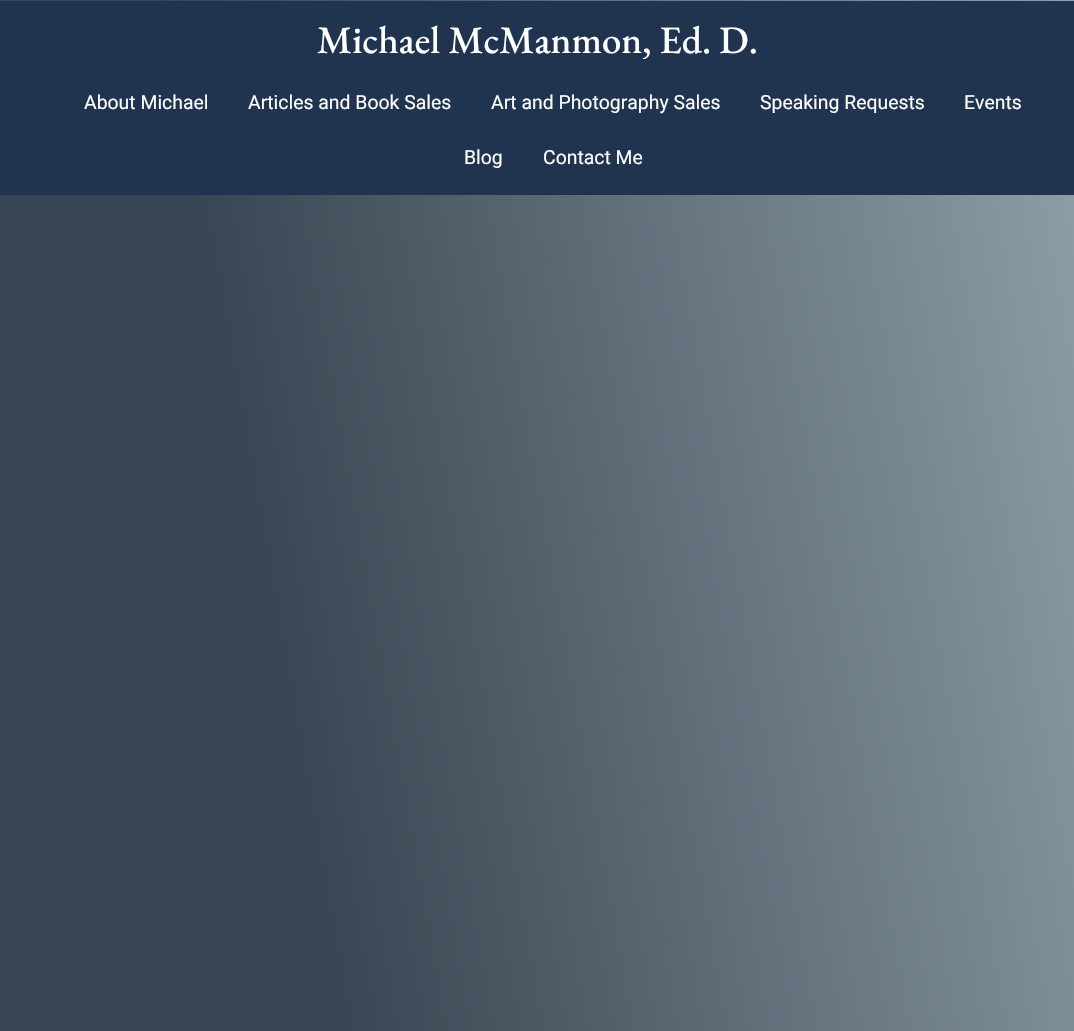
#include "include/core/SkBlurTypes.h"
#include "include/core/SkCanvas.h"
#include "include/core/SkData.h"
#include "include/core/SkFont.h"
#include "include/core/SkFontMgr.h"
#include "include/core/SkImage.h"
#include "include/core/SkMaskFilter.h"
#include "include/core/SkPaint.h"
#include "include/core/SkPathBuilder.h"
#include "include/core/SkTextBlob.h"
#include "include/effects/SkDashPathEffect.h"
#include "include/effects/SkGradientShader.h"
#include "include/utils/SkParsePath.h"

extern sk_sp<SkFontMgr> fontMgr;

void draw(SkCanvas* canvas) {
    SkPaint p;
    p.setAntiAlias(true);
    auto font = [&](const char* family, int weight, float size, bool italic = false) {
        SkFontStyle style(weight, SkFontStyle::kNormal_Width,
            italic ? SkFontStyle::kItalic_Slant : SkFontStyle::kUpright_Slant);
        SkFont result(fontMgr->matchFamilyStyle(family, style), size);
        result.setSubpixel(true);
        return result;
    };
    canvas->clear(0xFFFFFFFF);
    {
        const SkColor colors[] = {0xFF384552, 0xFF8FA0AA};
        const float stops[] = {0.27f, 1};
        const SkPoint ends[] = {{-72, 623}, {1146, 408}};
        p.setShader(SkGradientShader::MakeLinear(ends, colors, stops, 2, SkTileMode::kClamp));
        p.setAlpha(255);
    }
    canvas->drawRect(SkRect::MakeLTRB(0, 0, 1074, 1031), p);
    p.setShader(nullptr);
    p.setColor(0xFF20344F);
    canvas->drawRect(SkRect::MakeLTRB(0, 1, 1074, 195), p);
    auto font1 = font("EB Garamond", 500, 38.75f);
    p.setColor(0xFFFFFFFF);
    canvas->drawString("Michael McManmon, Ed. D.", 317, 53, font1, p);
    auto font2 = font("Roboto", 400, 19.4f);
    {
        const struct { const char* s; float x, y; } items[] = {
            {"About Michael", 84, 109},
            {"Articles and Book Sales", 248, 109},
            {"Art and Photography Sales", 491, 109},
            {"Speaking Requests", 760, 109},
            {"Events", 964, 109},
            {"Blog", 464, 164},
            {"Contact Me", 543, 164},
        };
        for (auto [s, x, y] : items) {
            canvas->drawString(s, x, y, font2, p);
        }
    }
}
